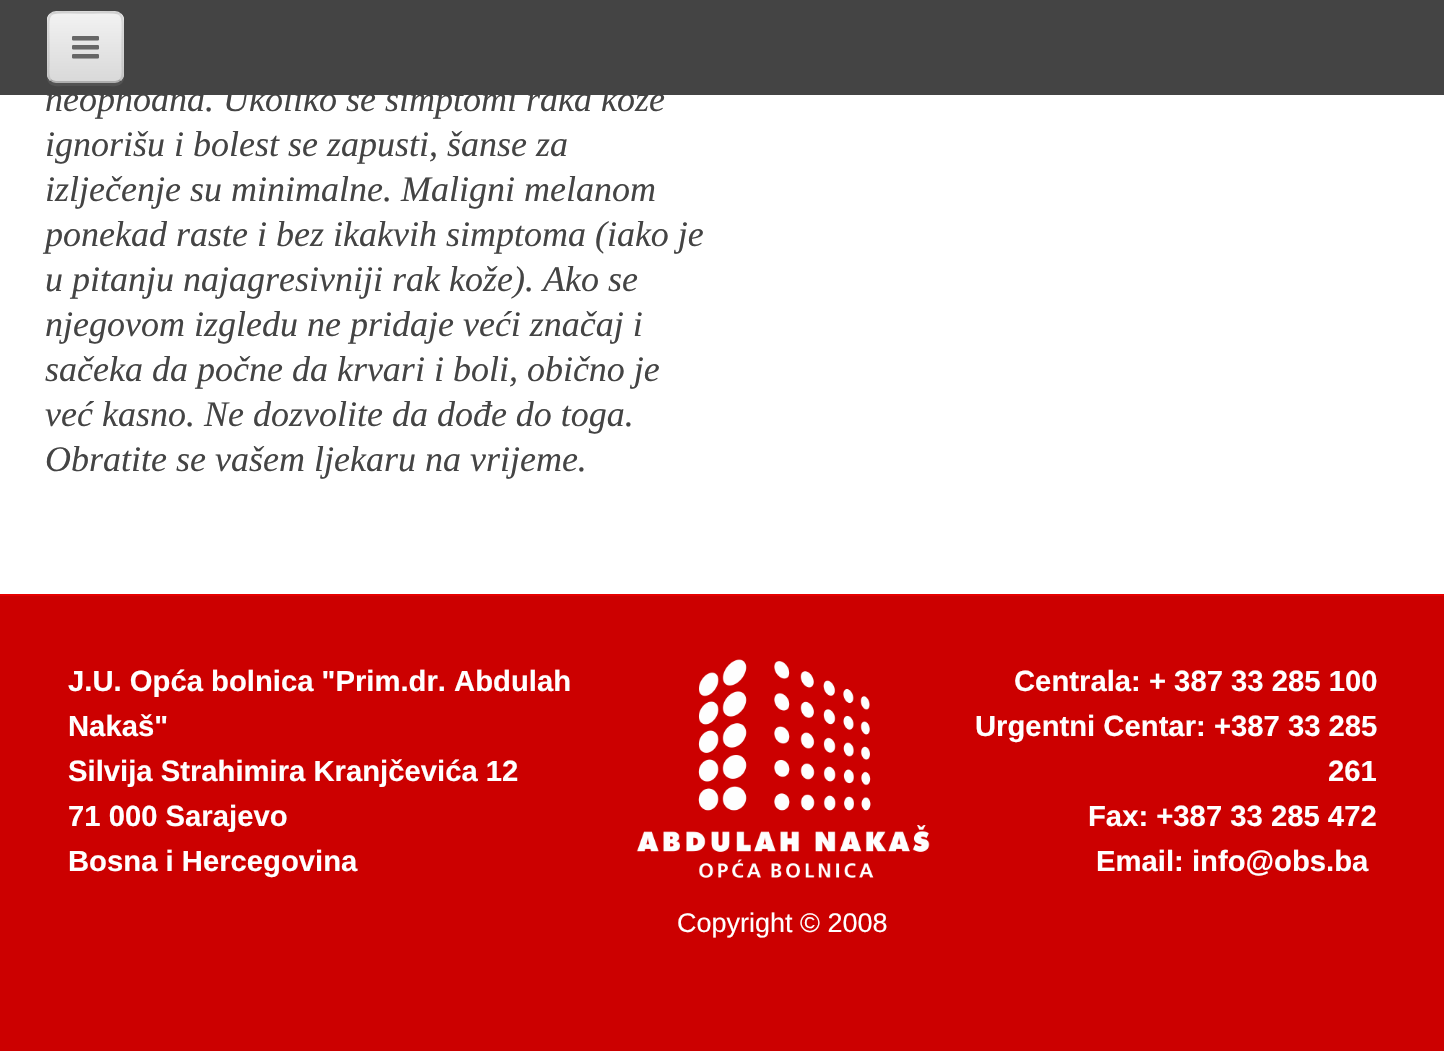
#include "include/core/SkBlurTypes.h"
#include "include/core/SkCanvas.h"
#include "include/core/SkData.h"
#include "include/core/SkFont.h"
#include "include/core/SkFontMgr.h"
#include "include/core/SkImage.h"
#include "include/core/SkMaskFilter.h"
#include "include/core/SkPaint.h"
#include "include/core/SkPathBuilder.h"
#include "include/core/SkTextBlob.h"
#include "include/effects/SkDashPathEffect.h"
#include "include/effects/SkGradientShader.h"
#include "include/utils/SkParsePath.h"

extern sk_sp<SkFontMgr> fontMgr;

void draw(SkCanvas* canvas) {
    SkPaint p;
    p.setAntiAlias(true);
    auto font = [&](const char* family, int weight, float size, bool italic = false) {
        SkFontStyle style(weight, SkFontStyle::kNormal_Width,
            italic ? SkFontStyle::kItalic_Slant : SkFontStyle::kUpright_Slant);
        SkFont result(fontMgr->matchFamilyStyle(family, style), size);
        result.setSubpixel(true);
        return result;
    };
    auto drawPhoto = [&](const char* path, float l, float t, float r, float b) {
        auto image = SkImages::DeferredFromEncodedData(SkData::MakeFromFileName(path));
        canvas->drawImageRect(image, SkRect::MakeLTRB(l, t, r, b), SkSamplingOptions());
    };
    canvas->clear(0xFFFFFFFF);
    p.setColor(0xFF444444);
    canvas->drawRect(SkRect::MakeLTRB(0, 0, 1444, 95), p);
    auto font1 = font("Liberation Serif", 400, 36, true);
    canvas->drawString("neophodna. Ukoliko se simptomi raka kože", 45, 111, font1, p);
    p.setColor(0xFF525252);
    canvas->drawPath(SkPathBuilder().moveTo(47, 21).lineTo(47, 79).cubicTo(49, 88, 59, 86, 66, 86).lineTo(105, 86).cubicTo(112, 86, 122, 88, 124, 79).lineTo(124, 21).lineTo(124, 74).cubicTo(124, 79, 120, 83, 115, 83).lineTo(56, 83).cubicTo(51, 83, 47, 79, 47, 74).close().detach(), p);
    p.setColor(0xFFE8E8E8);
    canvas->drawRoundRect(SkRect::MakeLTRB(47, 11, 124, 83), 9, 9, p);
    canvas->save();
    canvas->clipPath(SkPathBuilder().moveTo(56, 11).lineTo(115, 11).cubicTo(120, 11, 124, 15, 124, 20).lineTo(124, 74).cubicTo(124, 79, 120, 83, 115, 83).lineTo(56, 83).cubicTo(51, 83, 47, 79, 47, 74).lineTo(47, 20).cubicTo(47, 15, 51, 11, 56, 11).close().detach(), true);
    {
        const SkColor colors[] = {0xFFF2F2F2, 0xFFD9D9D9};
        const float stops[] = {0, 1};
        const SkPoint ends[] = {{86, 13}, {86, 81}};
        p.setShader(SkGradientShader::MakeLinear(ends, colors, stops, 2, SkTileMode::kClamp));
        p.setAlpha(255);
    }
    canvas->drawRect(SkRect::MakeLTRB(47, 14, 124, 81), p);
    canvas->restore();
    p.setStyle(SkPaint::kStroke_Style);
    p.setStrokeWidth(2.2f);
    p.setShader(nullptr);
    p.setColor(0x40000000);
    canvas->drawPath(SkPathBuilder().moveTo(120.5f, 80).cubicTo(119, 81.5f, 117, 82, 115, 82).lineTo(56, 82).cubicTo(54, 82, 52, 81.5f, 50.5f, 80).detach(), p);
    p.setColor(0x1A000000);
    canvas->drawPath(SkPathBuilder().moveTo(50.5f, 80).cubicTo(47, 76, 48.5f, 69.5f, 48.5f, 65).lineTo(48.5f, 47).cubicTo(48.5f, 6, 43, 12.5f, 85.5f, 12.5f).cubicTo(128, 12.5f, 122.5f, 6, 122.5f, 47).lineTo(122.5f, 65).cubicTo(122.5f, 69.5f, 124, 76, 120.5f, 80).detach(), p);
    drawPhoto("media/1.png", 72, 36, 99, 59);
    p.setStyle(SkPaint::kFill_Style);
    p.setColor(0xFF444444);
    {
        const struct { const char* s; float x, y; } items[] = {
            {"ignorišu i bolest se zapusti, šanse za", 45, 156},
            {"izlječenje su minimalne. Maligni melanom", 45, 201},
            {"ponekad raste i bez ikakvih simptoma (iako je", 45, 246},
            {"u pitanju najagresivniji rak kože). Ako se", 45, 291},
            {"njegovom izgledu ne pridaje veći značaj i", 45, 336},
            {"sačeka da počne da krvari i boli, obično je", 45, 381},
            {"već kasno. Ne dozvolite da dođe do toga.", 45, 426},
            {"Obratite se vašem ljekaru na vrijeme.", 45, 471},
        };
        for (auto [s, x, y] : items) {
            canvas->drawString(s, x, y, font1, p);
        }
    }
    p.setColor(0xFFCC0000);
    canvas->drawRect(SkRect::MakeLTRB(0, 596, 1444, 1051), p);
    p.setColor(0xFFE60000);
    canvas->drawRect(SkRect::MakeLTRB(0, 594, 1444, 596), p);
    auto font2 = font("Liberation Sans", 700, 29.25f);
    p.setColor(0xFFFFFFFF);
    {
        const struct { const char* s; float x, y; } items[] = {
            {"J.U. Opća bolnica \"Prim.dr. Abdulah", 68, 691},
            {"Nakaš\"", 68, 736},
            {"Silvija Strahimira Kranjčevića 12", 68, 781},
            {"71 000 Sarajevo", 68, 826},
            {"Bosna i Hercegovina", 68, 871},
            {"Centrala: + 387 33 285 100", 1014, 691},
            {"Urgentni Centar: +387 33 285", 975, 736},
            {"261", 1328, 781},
            {"Fax: +387 33 285 472", 1088, 826},
            {"Email: info@obs.ba", 1096, 871},
        };
        for (auto [s, x, y] : items) {
            canvas->drawString(s, x, y, font2, p);
        }
    }
    drawPhoto("media/2.png", 636, 659, 930, 878);
    auto font3 = font("Liberation Sans", 400, 27);
    canvas->drawString("Copyright © 2008", 677, 932, font3, p);
}
